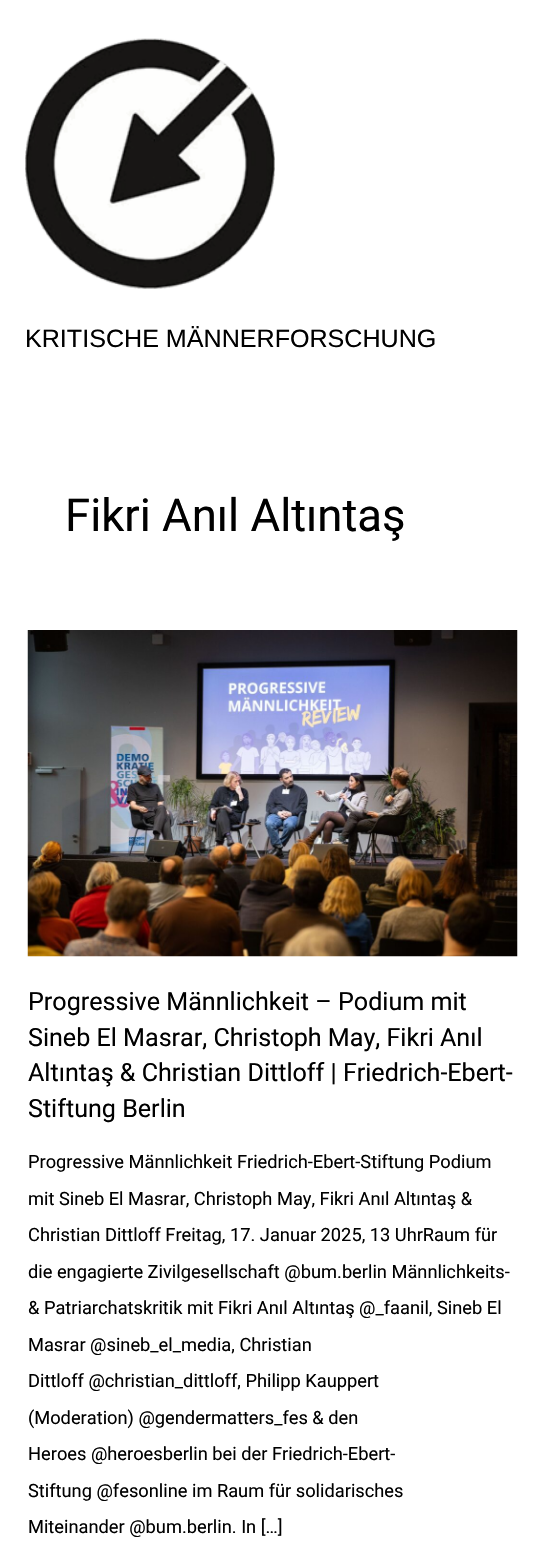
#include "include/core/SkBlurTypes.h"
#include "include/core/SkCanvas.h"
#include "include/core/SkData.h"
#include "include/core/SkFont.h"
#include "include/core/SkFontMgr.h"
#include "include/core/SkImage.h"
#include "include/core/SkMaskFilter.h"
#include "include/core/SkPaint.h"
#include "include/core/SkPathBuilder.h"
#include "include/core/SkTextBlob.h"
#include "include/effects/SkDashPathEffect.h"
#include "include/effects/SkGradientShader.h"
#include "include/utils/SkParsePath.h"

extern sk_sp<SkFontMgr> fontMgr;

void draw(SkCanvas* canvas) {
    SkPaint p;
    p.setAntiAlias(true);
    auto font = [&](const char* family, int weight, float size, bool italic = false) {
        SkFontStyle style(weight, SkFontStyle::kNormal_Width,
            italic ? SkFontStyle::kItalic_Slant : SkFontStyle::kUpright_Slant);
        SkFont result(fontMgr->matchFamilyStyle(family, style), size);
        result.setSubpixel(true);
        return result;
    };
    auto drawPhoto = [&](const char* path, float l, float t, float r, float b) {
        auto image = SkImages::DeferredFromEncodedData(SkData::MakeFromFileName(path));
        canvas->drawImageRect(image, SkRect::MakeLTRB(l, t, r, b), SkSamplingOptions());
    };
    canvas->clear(0xFFFFFFFF);
    drawPhoto("media/1.png", 25, 38, 275, 289);
    auto font1 = font("Liberation Sans", 400, 25.1f);
    p.setColor(0xFF000000);
    canvas->drawString("KRITISCHE MÄNNERFORSCHUNG", 25, 347, font1, p);
    auto font2 = font("Roboto", 400, 45.5f);
    canvas->drawString("Fikri Anıl Altıntaş", 65, 531, font2, p);
    drawPhoto("media/2.png", 27, 630, 518, 957);
    auto font3 = font("Roboto", 400, 25.1f);
    {
        const struct { const char* s; float x, y; } items[] = {
            {"Progressive Männlichkeit – Podium mit", 28, 1010},
            {"Sineb El Masrar, Christoph May, Fikri Anıl", 28, 1046},
            {"Altıntaş & Christian Dittloff | Friedrich-Ebert-", 28, 1081},
            {"Stiftung Berlin", 28, 1117},
        };
        for (auto [s, x, y] : items) {
            canvas->drawString(s, x, y, font3, p);
        }
    }
    auto font4 = font("Roboto", 400, 18.25f);
    {
        const struct { const char* s; float x, y; } items[] = {
            {"Progressive Männlichkeit Friedrich-Ebert-Stiftung Podium", 28, 1168},
            {"mit Sineb El Masrar, Christoph May, Fikri Anıl Altıntaş &", 28, 1205},
            {"Christian Dittloff Freitag, 17. Januar 2025, 13 UhrRaum für", 28, 1241},
            {"die engagierte Zivilgesellschaft @bum.berlin Männlichkeits-", 28, 1278},
            {"& Patriarchatskritik mit Fikri Anıl Altıntaş @_faanil, Sineb El", 28, 1314},
            {"Masrar @sineb_el_media, Christian", 28, 1351},
            {"Dittloff @christian_dittloff, Philipp Kauppert", 28, 1387},
            {"(Moderation) @gendermatters_fes & den", 28, 1424},
            {"Heroes @heroesberlin bei der Friedrich-Ebert-", 28, 1460},
            {"Stiftung @fesonline im Raum für solidarisches", 28, 1497},
            {"Miteinander @bum.berlin. In […]", 28, 1533},
        };
        for (auto [s, x, y] : items) {
            canvas->drawString(s, x, y, font4, p);
        }
    }
}
